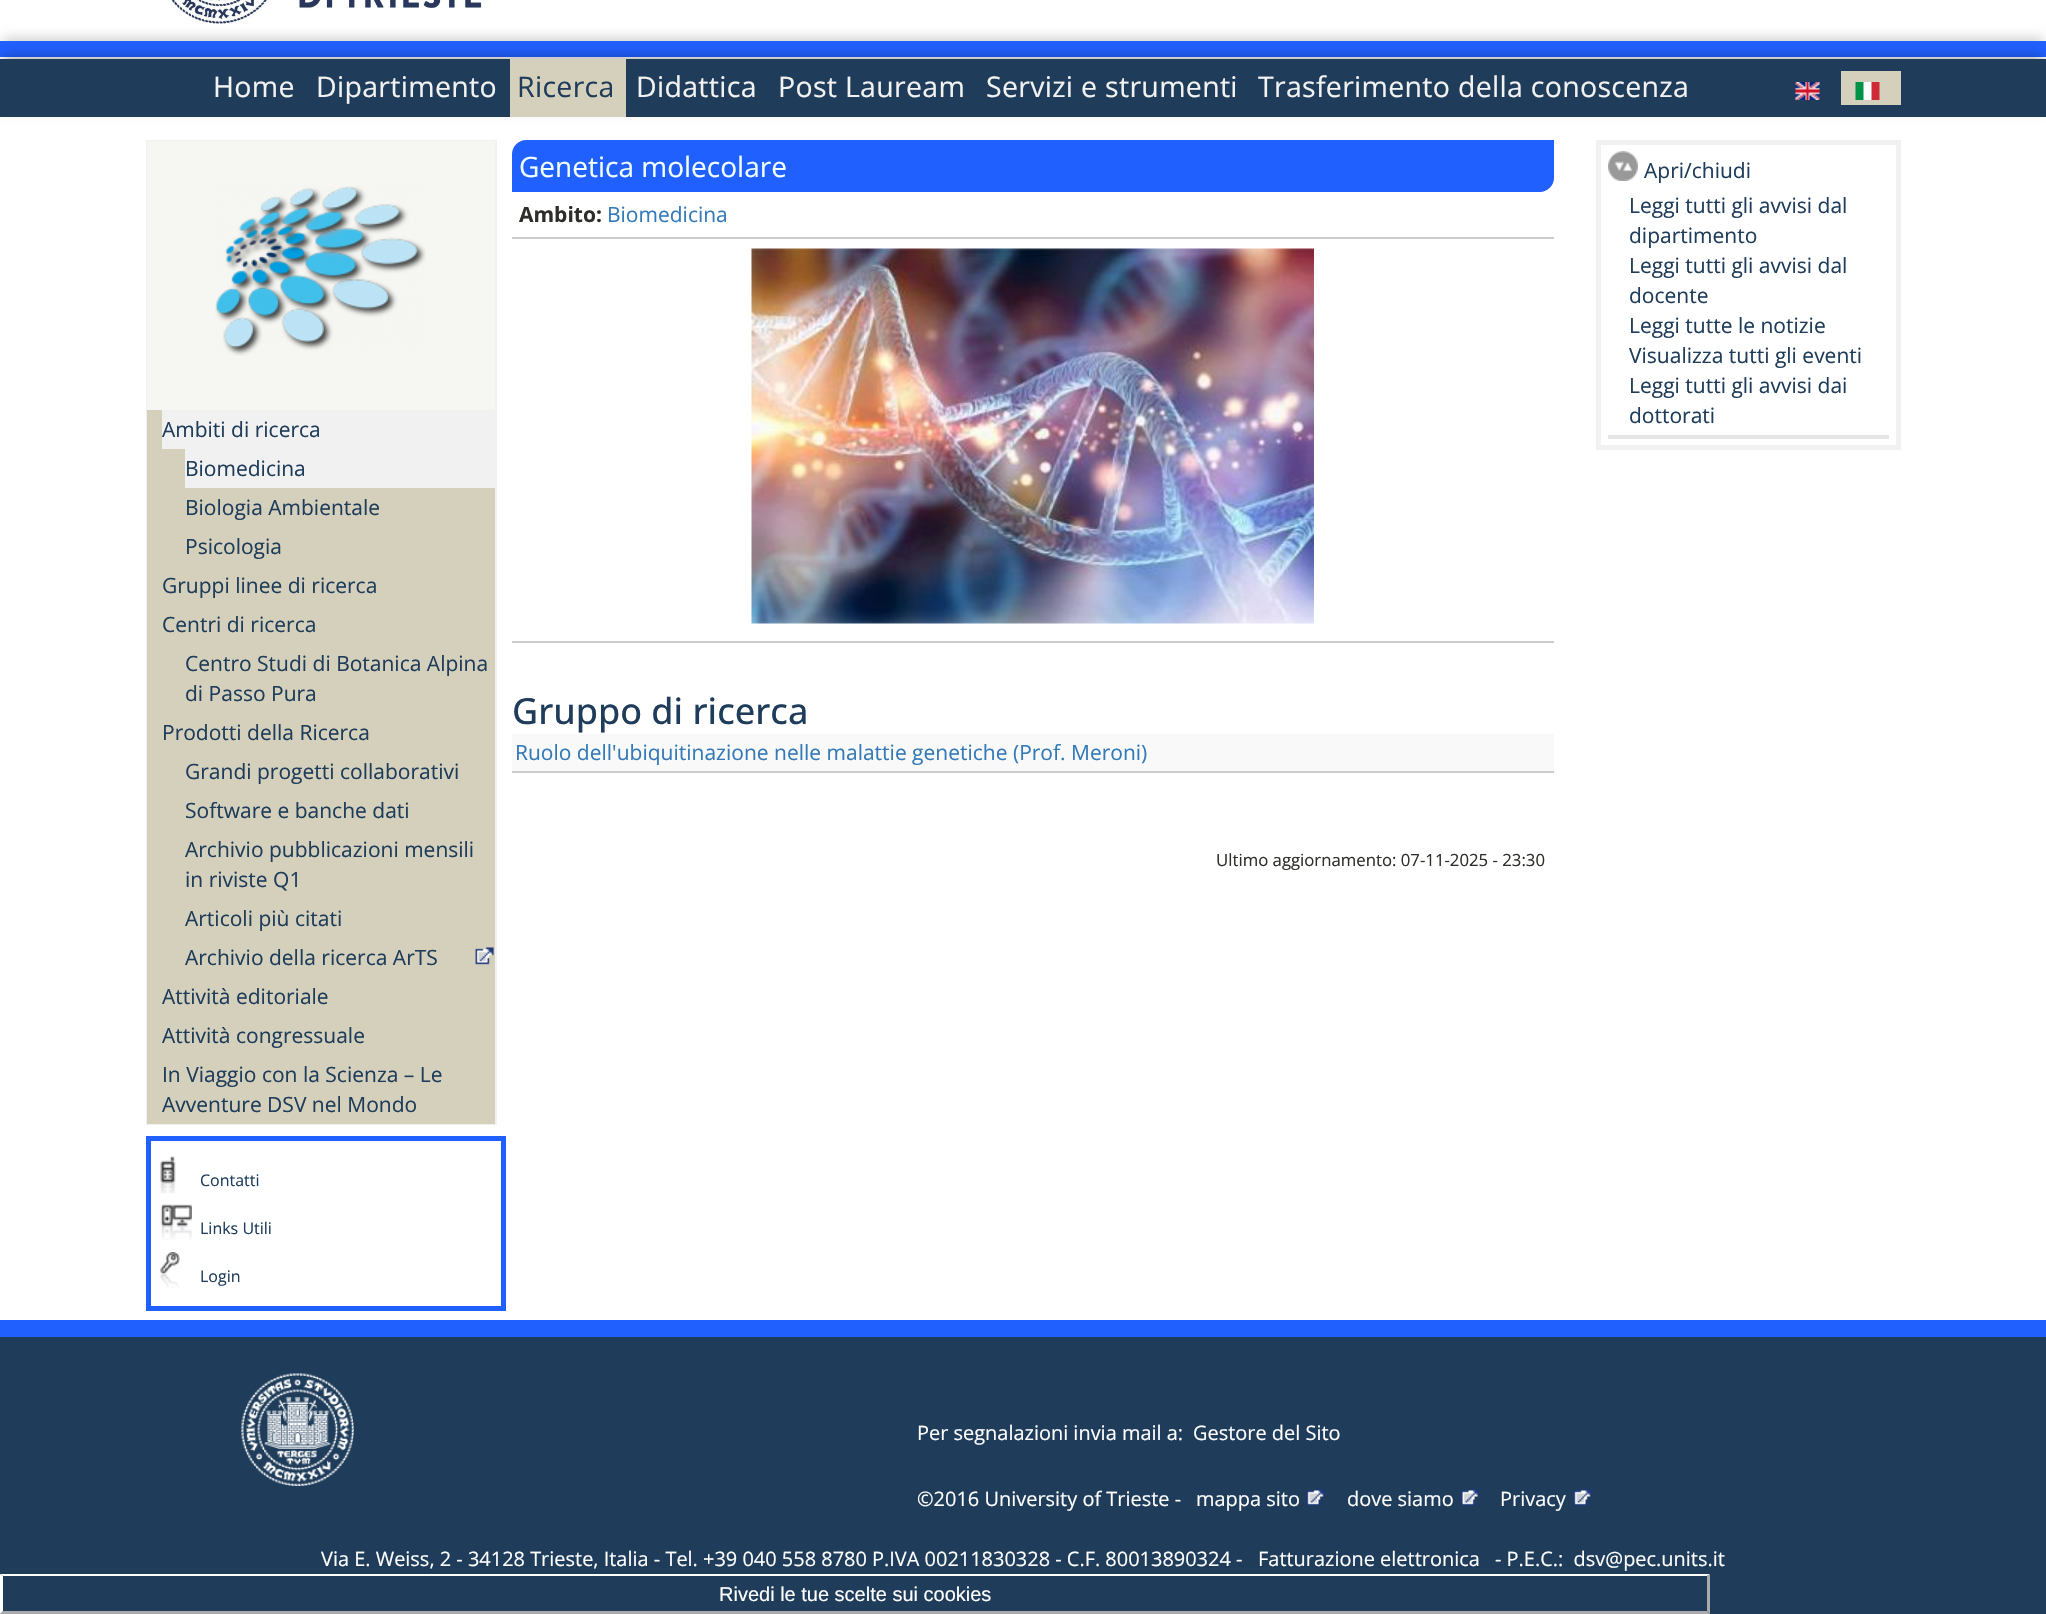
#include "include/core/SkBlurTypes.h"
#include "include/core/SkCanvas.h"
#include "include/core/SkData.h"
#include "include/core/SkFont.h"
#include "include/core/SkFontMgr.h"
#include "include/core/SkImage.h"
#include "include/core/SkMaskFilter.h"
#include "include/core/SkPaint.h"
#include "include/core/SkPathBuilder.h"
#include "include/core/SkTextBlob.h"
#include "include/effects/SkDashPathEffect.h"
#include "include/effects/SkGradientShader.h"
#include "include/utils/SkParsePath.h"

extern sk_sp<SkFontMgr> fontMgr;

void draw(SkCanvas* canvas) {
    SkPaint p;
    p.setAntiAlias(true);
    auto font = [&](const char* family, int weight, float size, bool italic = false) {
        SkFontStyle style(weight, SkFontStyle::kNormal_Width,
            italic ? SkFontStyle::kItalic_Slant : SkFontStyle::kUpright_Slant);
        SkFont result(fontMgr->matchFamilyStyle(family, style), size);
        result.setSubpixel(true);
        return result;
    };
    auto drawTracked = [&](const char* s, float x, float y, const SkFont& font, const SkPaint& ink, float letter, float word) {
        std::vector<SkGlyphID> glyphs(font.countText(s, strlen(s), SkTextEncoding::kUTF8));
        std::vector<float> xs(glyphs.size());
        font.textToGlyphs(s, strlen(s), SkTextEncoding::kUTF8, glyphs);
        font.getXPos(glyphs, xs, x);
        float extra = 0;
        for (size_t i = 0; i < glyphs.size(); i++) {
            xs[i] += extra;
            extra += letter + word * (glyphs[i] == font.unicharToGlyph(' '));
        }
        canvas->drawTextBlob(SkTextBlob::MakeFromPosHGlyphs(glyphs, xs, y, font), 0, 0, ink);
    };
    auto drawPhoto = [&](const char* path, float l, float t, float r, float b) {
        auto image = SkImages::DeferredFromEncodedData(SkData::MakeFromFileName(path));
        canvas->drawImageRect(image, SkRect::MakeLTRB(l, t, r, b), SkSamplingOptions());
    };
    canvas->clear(0xFFFFFFFF);
    p.setColor(0x33000000);
    p.setMaskFilter(SkMaskFilter::MakeBlur(kNormal_SkBlurStyle, 6));
    canvas->drawRect(SkRect::MakeLTRB(3, 38, 2043, 48), p);
    p.setMaskFilter(nullptr);
    drawPhoto("media/1.png", 170, 0, 483, 24);
    p.setColor(0xFF2060FF);
    canvas->drawRect(SkRect::MakeLTRB(0, 41, 2046, 57), p);
    p.setColor(0x4D000000);
    p.setMaskFilter(SkMaskFilter::MakeBlur(kNormal_SkBlurStyle, 6));
    canvas->drawRect(SkRect::MakeLTRB(3, 56, 2043, 108), p);
    p.setMaskFilter(nullptr);
    p.setColor(0xFF1F3D5A);
    canvas->drawRect(SkRect::MakeLTRB(0, 59, 2046, 117), p);
    auto font1 = font("Open Sans", 400, 28.5f);
    p.setColor(0xFFF2F2F2);
    drawTracked("Home", 213, 97, font1, p, 0.3f, 0);
    drawTracked("Dipartimento", 316, 97, font1, p, 0.3f, 0);
    p.setColor(0xFFD4D0BC);
    canvas->drawRect(SkRect::MakeLTRB(510, 59, 626, 117), p);
    p.setColor(0xFF1F3D5A);
    drawTracked("Ricerca", 517, 97, font1, p, 0.3f, 0);
    p.setColor(0xFFF2F2F2);
    {
        const struct { const char* s; float x, y; } items[] = {
            {"Didattica", 636, 97},
            {"Post Lauream", 778, 97},
            {"Servizi e strumenti", 986, 97},
            {"Trasferimento della conoscenza", 1258, 97},
        };
        for (auto [s, x, y] : items) {
            drawTracked(s, x, y, font1, p, 0.3f, 0);
        }
    }
    drawPhoto("media/2.png", 1795, 82, 1820, 100);
    p.setColor(0xFFD4D0BC);
    canvas->drawRect(SkRect::MakeLTRB(1841, 71, 1901, 105), p);
    drawPhoto("media/3.png", 1855, 82, 1880, 100);
    p.setStyle(SkPaint::kStroke_Style);
    p.setStrokeWidth(2);
    p.setColor(0xFFF1F1F1);
    canvas->drawRect(SkRect::MakeLTRB(147, 141, 496, 1124), p);
    p.setStyle(SkPaint::kFill_Style);
    p.setColor(0xFFF6F6F2);
    canvas->drawRect(SkRect::MakeLTRB(147, 141, 495, 410), p);
    drawPhoto("media/4.png", 215, 186, 426, 356);
    p.setColor(0xFFD4D0BC);
    canvas->drawRect(SkRect::MakeLTRB(147, 410, 495, 1124), p);
    p.setColor(0xFFF1F1F1);
    canvas->drawRect(SkRect::MakeLTRB(162, 410, 495, 449), p);
    auto font2 = font("Open Sans", 400, 21);
    p.setColor(0xFF1F3D5A);
    canvas->drawString("Ambiti di ricerca", 162, 437, font2, p);
    p.setColor(0xFFF1F1F1);
    canvas->drawRect(SkRect::MakeLTRB(185, 449, 495, 488), p);
    p.setColor(0xFF1F3D5A);
    {
        const struct { const char* s; float x, y; } items[] = {
            {"Biomedicina", 185, 476},
            {"Biologia Ambientale", 185, 515},
            {"Psicologia", 185, 554},
            {"Gruppi linee di ricerca", 162, 593},
            {"Centri di ricerca", 162, 632},
            {"Centro Studi di Botanica Alpina", 185, 671},
            {"di Passo Pura", 185, 701},
            {"Prodotti della Ricerca", 162, 740},
            {"Grandi progetti collaborativi", 185, 779},
            {"Software e banche dati", 185, 818},
            {"Archivio pubblicazioni mensili", 185, 857},
            {"in riviste Q1", 185, 887},
            {"Articoli più citati", 185, 926},
        };
        for (auto [s, x, y] : items) {
            canvas->drawString(s, x, y, font2, p);
        }
    }
    drawPhoto("media/5.png", 475, 947, 494, 965);
    {
        const struct { const char* s; float x, y; } items[] = {
            {"Archivio della ricerca ArTS", 185, 965},
            {"Attività editoriale", 162, 1004},
            {"Attività congressuale", 162, 1043},
            {"In Viaggio con la Scienza – Le", 162, 1082},
            {"Avventure DSV nel Mondo", 162, 1112},
        };
        for (auto [s, x, y] : items) {
            canvas->drawString(s, x, y, font2, p);
        }
    }
    p.setStyle(SkPaint::kStroke_Style);
    p.setStrokeWidth(5);
    p.setColor(0xFF2060FF);
    canvas->drawRect(SkRect::MakeLTRB(148.5f, 1138.5f, 503.5f, 1308.5f), p);
    drawPhoto("media/6.png", 160, 1156, 176, 1194);
    auto font3 = font("Open Sans", 400, 16);
    p.setStyle(SkPaint::kFill_Style);
    p.setColor(0xFF1F3D5A);
    canvas->drawString("Contatti", 200, 1186, font3, p);
    drawPhoto("media/7.png", 160, 1204, 192, 1240);
    canvas->drawString("Links Utili", 200, 1234, font3, p);
    drawPhoto("media/8.png", 160, 1252, 180, 1288);
    canvas->drawString("Login", 200, 1282, font3, p);
    p.setColor(0xFF2060FF);
    canvas->drawPath(SkPathBuilder().moveTo(526, 140).lineTo(1554, 140).lineTo(1554, 178).cubicTo(1554, 185.5f, 1547.5f, 192, 1540, 192).lineTo(512, 192).lineTo(512, 154).cubicTo(512, 146.5f, 518.5f, 140, 526, 140).close().detach(), p);
    auto font4 = font("Open Sans", 400, 28);
    p.setColor(0xFFF0FFFF);
    canvas->drawString("Genetica molecolare", 519, 177, font4, p);
    p.setColor(0xFFCCCCCC);
    canvas->drawRect(SkRect::MakeLTRB(512, 237, 1554, 239), p);
    auto font5 = font("Open Sans", 700, 21);
    p.setColor(0xFF2E2D29);
    canvas->drawString("Ambito:", 519, 222, font5, p);
    p.setColor(0xFF337AB7);
    canvas->drawString("Biomedicina", 607, 222, font2, p);
    p.setColor(0xFFCCCCCC);
    canvas->drawRect(SkRect::MakeLTRB(512, 641, 1554, 643), p);
    drawPhoto("media/9.png", 751, 248, 1314, 624);
    auto font6 = font("Open Sans", 500, 36);
    p.setColor(0xFF1F3D5A);
    canvas->drawString("Gruppo di ricerca", 512, 724, font6, p);
    p.setColor(0xFFF9F9F9);
    canvas->drawRect(SkRect::MakeLTRB(512, 734, 1554, 771), p);
    p.setColor(0xFFCCCCCC);
    canvas->drawRect(SkRect::MakeLTRB(512, 771, 1554, 773), p);
    p.setColor(0xFF337AB7);
    canvas->drawString("Ruolo dell'ubiquitinazione nelle malattie genetiche (Prof. Meroni)", 515, 760, font2, p);
    auto font7 = font("Open Sans", 400, 16.75f);
    p.setColor(0xFF2E2D29);
    canvas->drawString("Ultimo aggiornamento: 07-11-2025 - 23:30", 1216, 866, font7, p);
    p.setStyle(SkPaint::kStroke_Style);
    p.setColor(0xFFF1F1F1);
    canvas->drawRect(SkRect::MakeLTRB(1598.5f, 142.5f, 1898.5f, 447.5f), p);
    drawPhoto("media/10.png", 1608, 151, 1638, 181);
    p.setStyle(SkPaint::kFill_Style);
    p.setColor(0xFF1F3D5A);
    canvas->drawString("Apri/chiudi", 1644, 178, font2, p);
    p.setColor(0xFFE6E6E6);
    canvas->drawRect(SkRect::MakeLTRB(1608, 435, 1889, 439), p);
    p.setColor(0xFF1F3D5A);
    {
        const struct { const char* s; float x, y; } items[] = {
            {"Leggi tutti gli avvisi dal", 1629, 213},
            {"dipartimento", 1629, 243},
            {"Leggi tutti gli avvisi dal", 1629, 273},
            {"docente", 1629, 303},
            {"Leggi tutte le notizie", 1629, 333},
            {"Visualizza tutti gli eventi", 1629, 363},
            {"Leggi tutti gli avvisi dai", 1629, 393},
            {"dottorati", 1629, 423},
        };
        for (auto [s, x, y] : items) {
            canvas->drawString(s, x, y, font2, p);
        }
    }
    canvas->drawRect(SkRect::MakeLTRB(0, 1337, 2046, 1614), p);
    p.setColor(0xFF2060FF);
    canvas->drawRect(SkRect::MakeLTRB(0, 1320, 2046, 1337), p);
    drawPhoto("media/11.png", 241, 1373, 354, 1486);
    auto font8 = font("Open Sans", 400, 19.95f);
    p.setColor(0xFFFFFFFF);
    {
        const struct { const char* s; float x, y; } items[] = {
            {"Per segnalazioni invia mail a:", 917, 1440},
            {"Gestore del Sito", 1193, 1440},
            {"©2016 University of Trieste -", 917, 1506},
            {"mappa sito", 1196, 1506},
        };
        for (auto [s, x, y] : items) {
            canvas->drawString(s, x, y, font8, p);
        }
    }
    drawPhoto("media/12.png", 1306, 1488, 1325, 1506);
    canvas->drawString("dove siamo", 1347, 1506, font8, p);
    drawPhoto("media/13.png", 1460, 1488, 1480, 1506);
    canvas->drawString("Privacy", 1500, 1506, font8, p);
    drawPhoto("media/12.png", 1573, 1488, 1592, 1506);
    {
        const struct { const char* s; float x, y; } items[] = {
            {"Via E. Weiss, 2 - 34128 Trieste, Italia - Tel. +39 040 558 8780 P.IVA 00211830328 - C.F. 80013890324 -", 321, 1566},
            {"Fatturazione elettronica", 1258, 1566},
            {"- P.E.C.:  dsv@pec.units.it", 1495, 1566},
        };
        for (auto [s, x, y] : items) {
            canvas->drawString(s, x, y, font8, p);
        }
    }
    canvas->drawPath(SkPathBuilder().moveTo(0, 1574).lineTo(1710, 1574).lineTo(1707, 1576).lineTo(3, 1576).close().detach(), p);
    p.setColor(0xFFAAAAAA);
    canvas->drawPath(SkPathBuilder().moveTo(1710, 1574).lineTo(1710, 1614).lineTo(1707, 1611).lineTo(1707, 1576).close().detach(), p);
    canvas->drawPath(SkPathBuilder().moveTo(1710, 1614).lineTo(0, 1614).lineTo(3, 1611).lineTo(1707, 1611).close().detach(), p);
    p.setColor(0xFFFFFFFF);
    canvas->drawPath(SkPathBuilder().moveTo(0, 1614).lineTo(0, 1574).lineTo(3, 1576).lineTo(3, 1611).close().detach(), p);
    auto font9 = font("Liberation Sans", 400, 20);
    canvas->drawString("Rivedi le tue scelte sui cookies", 719, 1601, font9, p);
}
